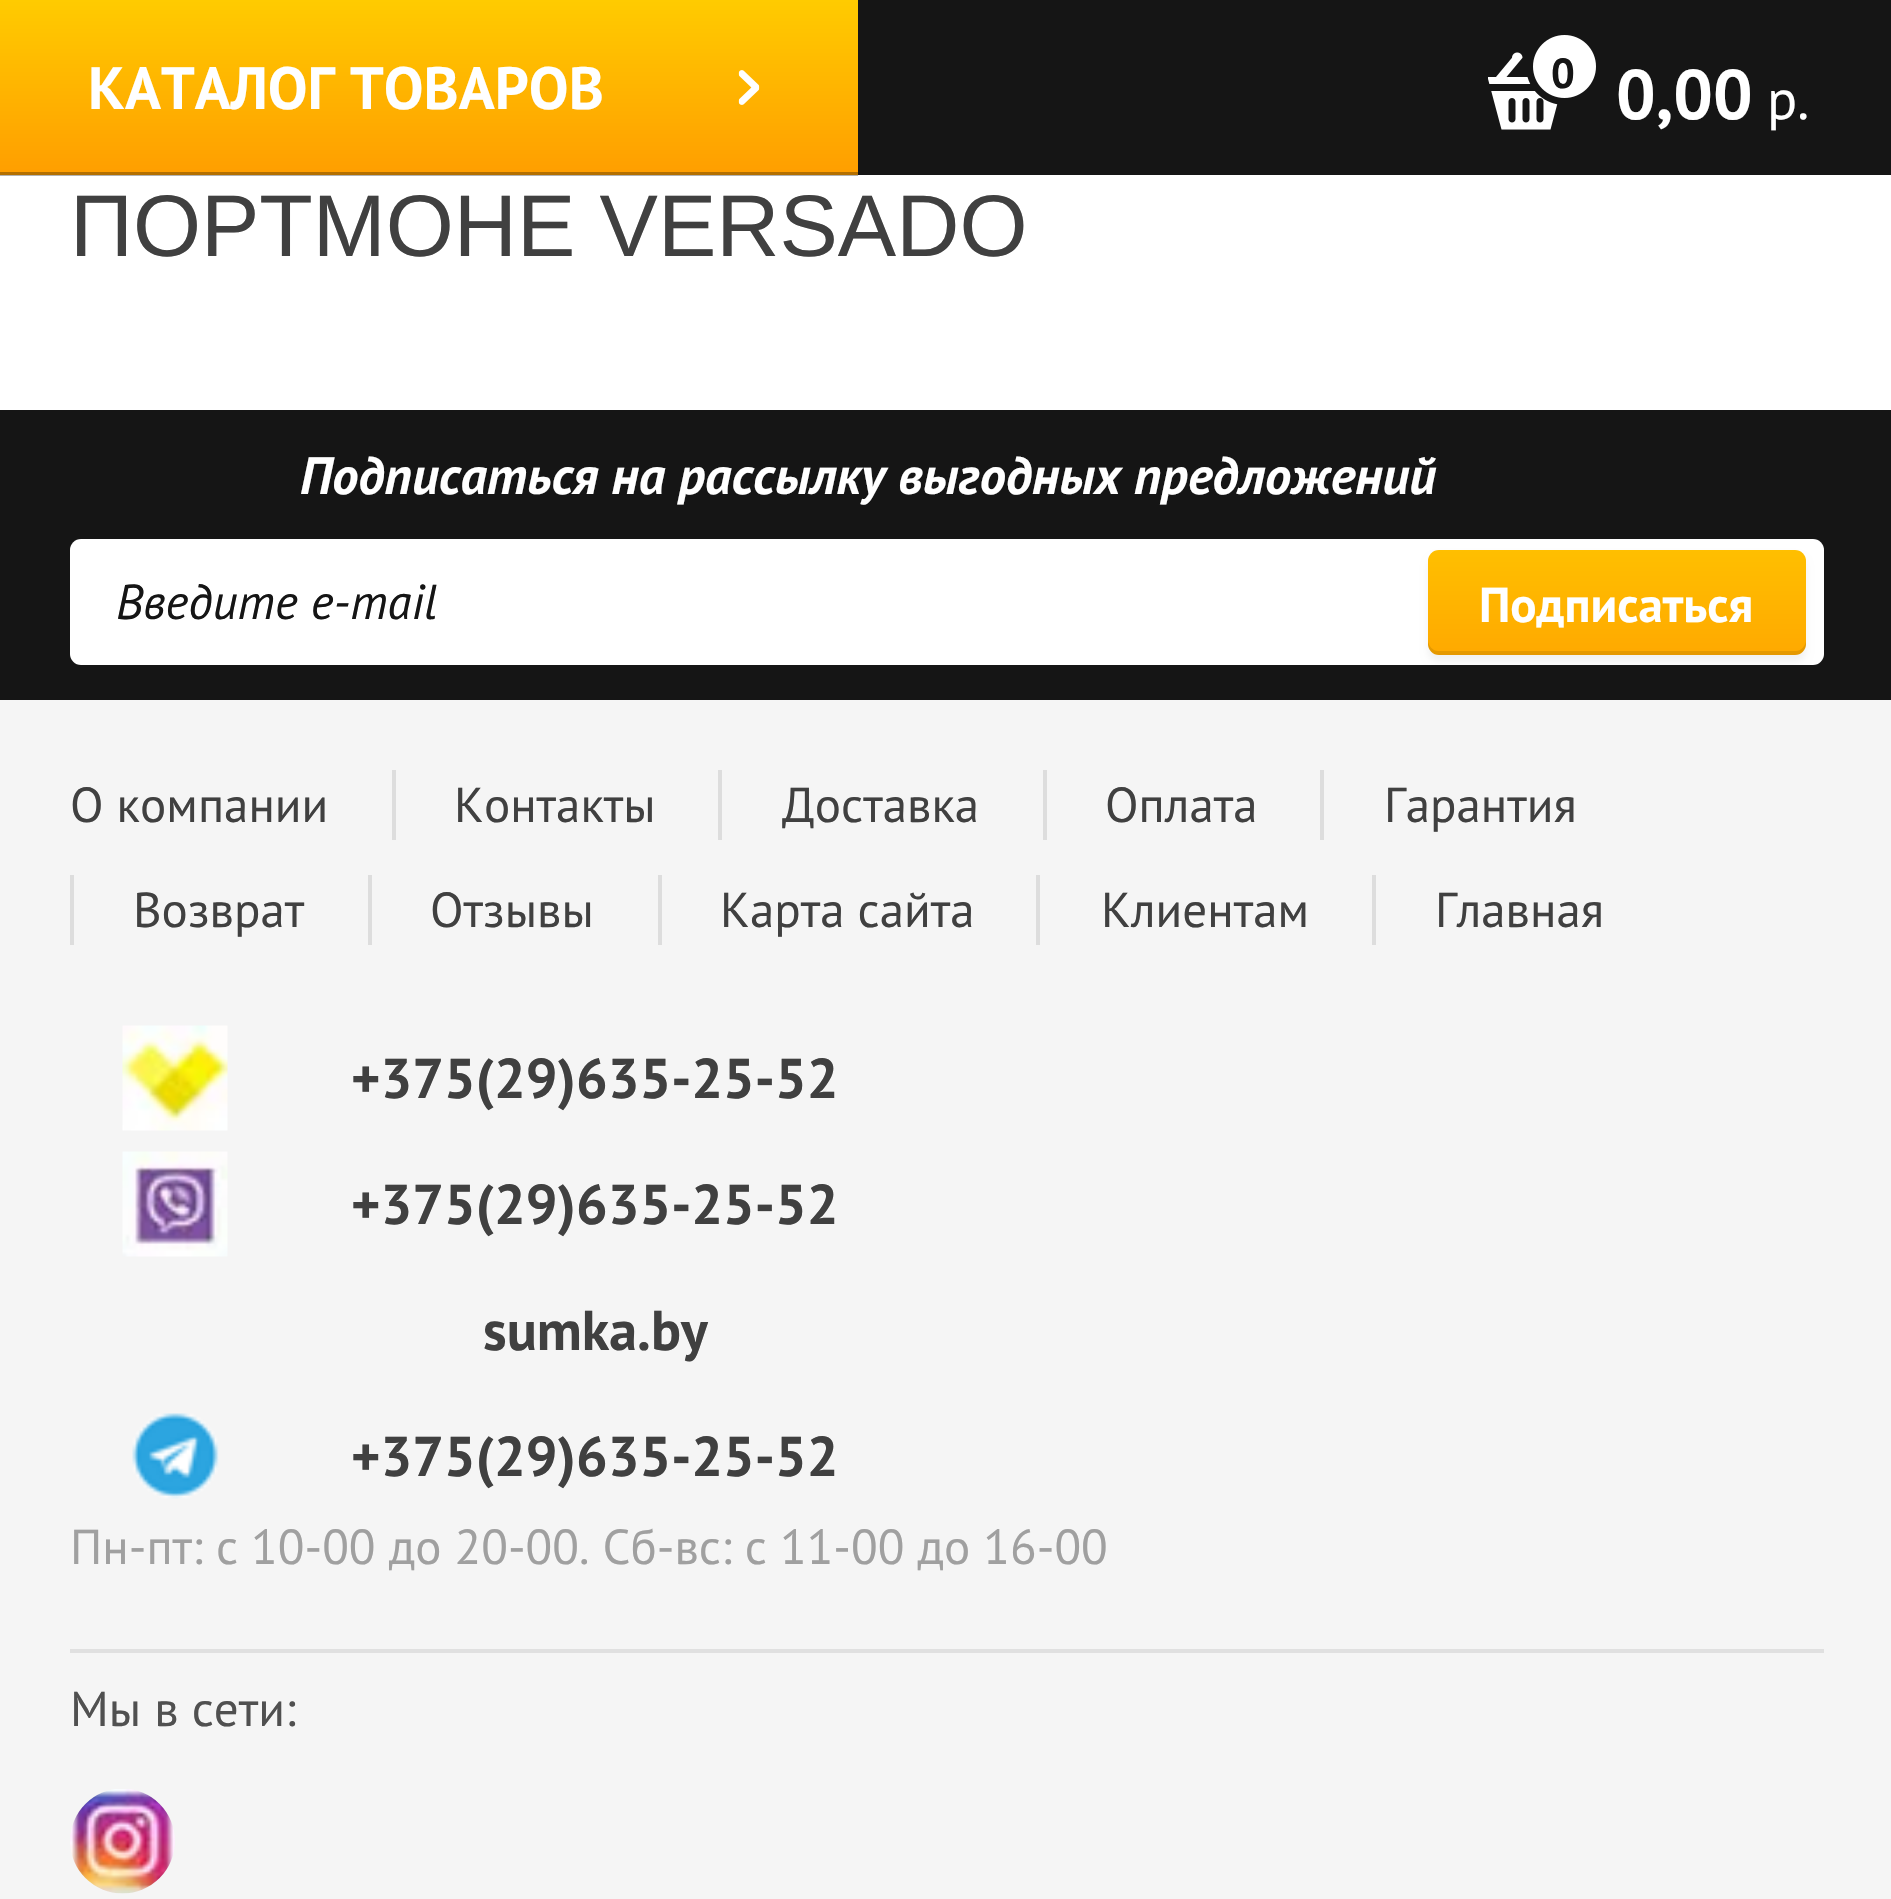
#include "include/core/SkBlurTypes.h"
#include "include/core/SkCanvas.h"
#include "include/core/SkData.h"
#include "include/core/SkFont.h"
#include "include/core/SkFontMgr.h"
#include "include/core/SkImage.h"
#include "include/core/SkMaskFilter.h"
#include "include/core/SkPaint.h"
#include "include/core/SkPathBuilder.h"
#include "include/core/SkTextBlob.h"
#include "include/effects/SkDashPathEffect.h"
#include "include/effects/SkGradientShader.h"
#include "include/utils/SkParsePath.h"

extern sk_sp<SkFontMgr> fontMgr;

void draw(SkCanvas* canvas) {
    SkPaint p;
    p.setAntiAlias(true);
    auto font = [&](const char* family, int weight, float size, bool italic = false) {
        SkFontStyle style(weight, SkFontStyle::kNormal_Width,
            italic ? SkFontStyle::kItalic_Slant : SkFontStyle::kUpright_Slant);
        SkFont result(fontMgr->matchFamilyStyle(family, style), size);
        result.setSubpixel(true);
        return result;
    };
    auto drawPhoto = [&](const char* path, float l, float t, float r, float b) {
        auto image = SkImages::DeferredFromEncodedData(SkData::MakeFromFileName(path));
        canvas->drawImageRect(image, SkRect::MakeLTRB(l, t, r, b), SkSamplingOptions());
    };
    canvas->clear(0xFFFFFFFF);
    p.setColor(0xFFB3B3B3);
    canvas->drawRect(SkRect::MakeLTRB(0, 175, 858, 176), p);
    p.setColor(0xFF151515);
    canvas->drawRect(SkRect::MakeLTRB(858, 0, 1891, 175), p);
    {
        const SkColor colors[] = {0xFFFF9E00, 0xFFFFCB00};
        const float stops[] = {0, 1};
        const SkPoint ends[] = {{429, 175}, {429, 0}};
        p.setShader(SkGradientShader::MakeLinear(ends, colors, stops, 2, SkTileMode::kClamp));
        p.setAlpha(255);
    }
    canvas->drawRect(SkRect::MakeLTRB(0, 0, 858, 172), p);
    {
        const SkColor colors[] = {0xFFB36F00, 0xFFB38E00};
        const float stops[] = {0, 1};
        const SkPoint ends[] = {{429, 175}, {429, 0}};
        p.setShader(SkGradientShader::MakeLinear(ends, colors, stops, 2, SkTileMode::kClamp));
        p.setAlpha(255);
    }
    canvas->drawRect(SkRect::MakeLTRB(0, 172, 858, 175), p);
    auto font1 = font("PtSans", 700, 59.5f);
    p.setShader(nullptr);
    p.setColor(0xFFFFFFFF);
    canvas->drawString("КАТАЛОГ ТОВАРОВ", 88, 109, font1, p);
    drawPhoto("media/1.png", 738, 70, 760, 105);
    drawPhoto("media/2.png", 1488, 35, 1596, 130);
    auto font2 = font("PtSans", 700, 42);
    p.setColor(0xFF151515);
    canvas->drawString("0", 1551, 88, font2, p);
    auto font3 = font("PtSans", 700, 70);
    p.setColor(0xFFFFFFFF);
    canvas->drawString("0,00", 1616, 119, font3, p);
    auto font4 = font("PtSans", 400, 56);
    canvas->drawString("р.", 1767, 119, font4, p);
    auto font5 = font("Liberation Sans", 400, 87.5f);
    p.setColor(0xFF404040);
    canvas->drawString("ПОРТМОНЕ VERSADO", 70, 256, font5, p);
    p.setColor(0xFFF5F5F5);
    canvas->drawRect(SkRect::MakeLTRB(0, 700, 1891, 1899), p);
    p.setColor(0xFF151515);
    canvas->drawRect(SkRect::MakeLTRB(0, 410, 1891, 700), p);
    auto font6 = font("PtSans", 700, 52.5f, true);
    p.setColor(0xFFFFFFFF);
    canvas->drawString("Подписаться на рассылку выгодных предложений", 300, 494, font6, p);
    canvas->drawRoundRect(SkRect::MakeLTRB(70, 539, 1824, 665), 11, 11, p);
    auto font7 = font("PtSans", 400, 49, true);
    p.setColor(0xFF151515);
    canvas->drawString("Введите e-mail", 116, 619, font7, p);
    p.setColor(0x0D000000);
    p.setMaskFilter(SkMaskFilter::MakeBlur(kNormal_SkBlurStyle, 3.5f));
    canvas->drawRoundRect(SkRect::MakeLTRB(1428, 557, 1806, 662), 11, 11, p);
    p.setMaskFilter(nullptr);
    {
        const SkColor colors[] = {0xFFFFA900, 0xFFFFBF00};
        const float stops[] = {0, 1};
        const SkPoint ends[] = {{1617, 655}, {1617, 550}};
        p.setShader(SkGradientShader::MakeLinear(ends, colors, stops, 2, SkTileMode::kClamp));
        p.setAlpha(255);
    }
    canvas->drawRoundRect(SkRect::MakeLTRB(1428, 550, 1806, 655), 11, 11, p);
    p.setShader(nullptr);
    p.setColor(0x1A000000);
    canvas->drawPath(SkPathBuilder().moveTo(1428, 640).lineTo(1428, 644).cubicTo(1428, 650, 1433, 655, 1439, 655).lineTo(1795, 655).cubicTo(1801, 655, 1806, 650, 1806, 644).lineTo(1806, 640).cubicTo(1806, 646, 1801, 651, 1796, 651).lineTo(1438, 651).cubicTo(1433, 651, 1428, 646, 1428, 640).close().detach(), p);
    auto font8 = font("PtSans", 700, 49);
    p.setColor(0xFFFFFFFF);
    canvas->drawString("Подписаться", 1479, 622, font8, p);
    p.setColor(0xFFE0E0E0);
    canvas->drawRect(SkRect::MakeLTRB(70, 1649, 1824, 1653), p);
    auto font9 = font("PtSans", 400, 49);
    p.setColor(0xFF404040);
    canvas->drawString("О компании", 70, 822, font9, p);
    p.setColor(0xFFDDDDDD);
    canvas->drawRect(SkRect::MakeLTRB(392, 770, 396, 840), p);
    p.setColor(0xFF404040);
    canvas->drawString("Контакты", 454, 822, font9, p);
    p.setColor(0xFFDDDDDD);
    canvas->drawRect(SkRect::MakeLTRB(718, 770, 722, 840), p);
    p.setColor(0xFF404040);
    canvas->drawString("Доставка", 782, 822, font9, p);
    p.setColor(0xFFDDDDDD);
    canvas->drawRect(SkRect::MakeLTRB(1043, 770, 1047, 840), p);
    p.setColor(0xFF404040);
    canvas->drawString("Оплата", 1105, 822, font9, p);
    p.setColor(0xFFDDDDDD);
    canvas->drawRect(SkRect::MakeLTRB(1320, 770, 1324, 840), p);
    p.setColor(0xFF404040);
    canvas->drawString("Гарантия", 1384, 822, font9, p);
    p.setColor(0xFFDDDDDD);
    canvas->drawRect(SkRect::MakeLTRB(70, 875, 74, 945), p);
    p.setColor(0xFF404040);
    canvas->drawString("Возврат", 133, 927, font9, p);
    p.setColor(0xFFDDDDDD);
    canvas->drawRect(SkRect::MakeLTRB(368, 875, 372, 945), p);
    p.setColor(0xFF404040);
    canvas->drawString("Отзывы", 430, 927, font9, p);
    p.setColor(0xFFDDDDDD);
    canvas->drawRect(SkRect::MakeLTRB(658, 875, 662, 945), p);
    p.setColor(0xFF404040);
    canvas->drawString("Карта сайта", 720, 927, font9, p);
    p.setColor(0xFFDDDDDD);
    canvas->drawRect(SkRect::MakeLTRB(1036, 875, 1040, 945), p);
    p.setColor(0xFF404040);
    canvas->drawString("Клиентам", 1101, 927, font9, p);
    p.setColor(0xFFDDDDDD);
    canvas->drawRect(SkRect::MakeLTRB(1372, 875, 1376, 945), p);
    p.setColor(0xFF404040);
    canvas->drawString("Главная", 1435, 927, font9, p);
    drawPhoto("media/3.png", 122, 1025, 228, 1131);
    auto font10 = font("PtSans", 700, 56);
    canvas->drawString("+375(29)635-25-52", 351, 1098, font10, p);
    drawPhoto("media/4.png", 122, 1151, 228, 1257);
    canvas->drawString("+375(29)635-25-52", 351, 1224, font10, p);
    canvas->drawString("sumka.by", 483, 1350, font10, p);
    drawPhoto("media/5.png", 132, 1413, 219, 1499);
    canvas->drawString("+375(29)635-25-52", 351, 1476, font10, p);
    p.setColor(0xFFA0A0A0);
    canvas->drawString("Пн-пт: с 10-00 до 20-00. Сб-вс: с 11-00 до 16-00", 70, 1564, font9, p);
    p.setColor(0xFF505050);
    canvas->drawString("Мы в сети:", 70, 1726, font9, p);
    drawPhoto("media/6.png", 70, 1789, 175, 1894);
}
